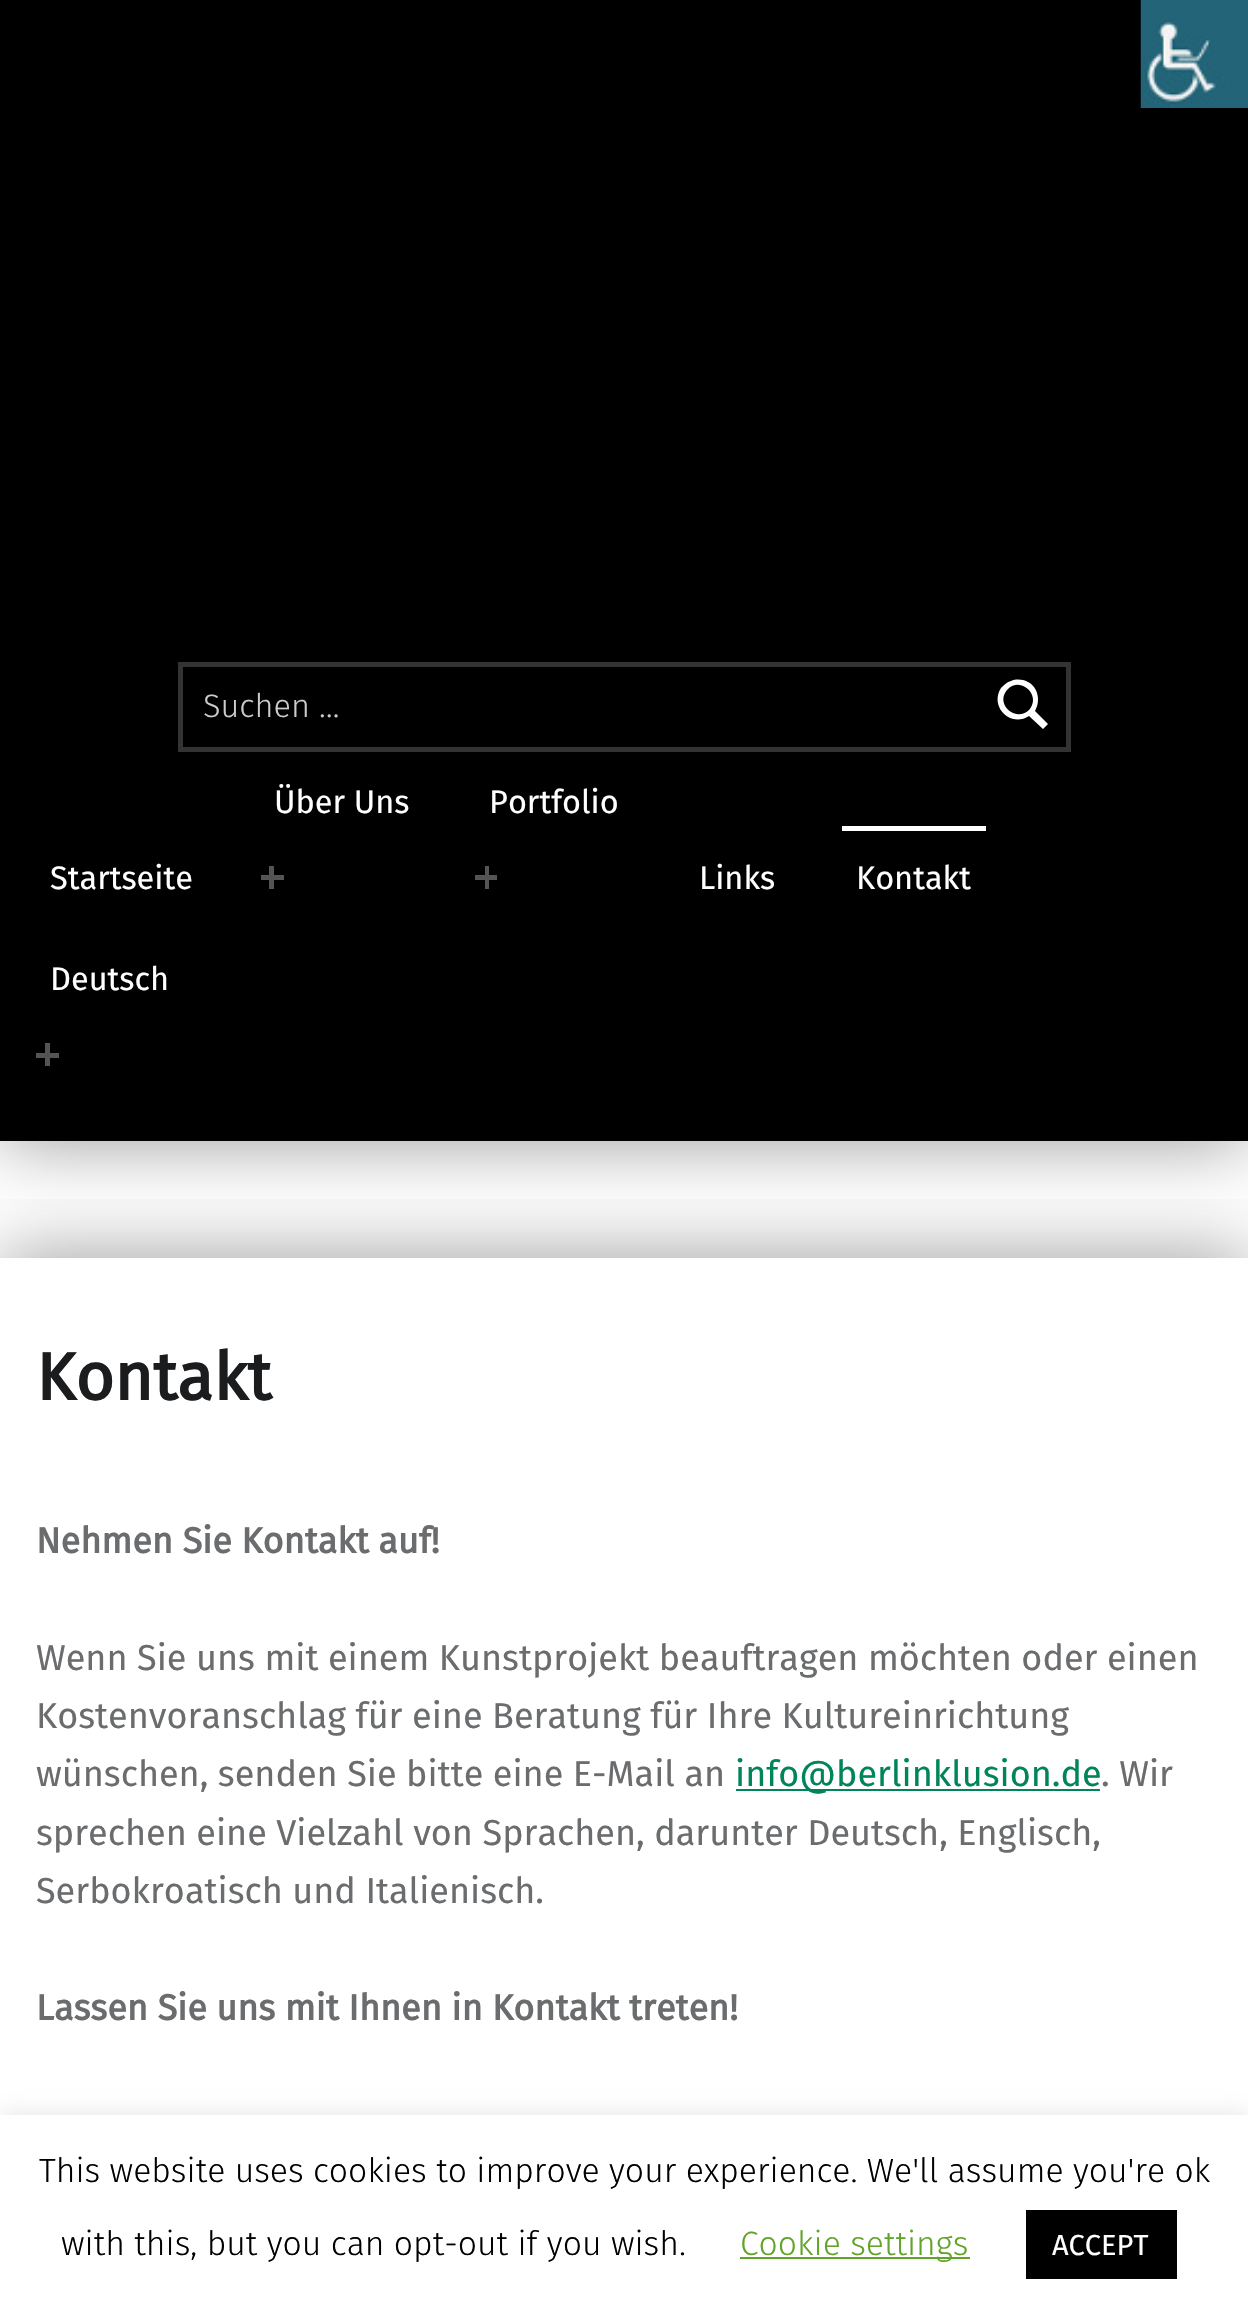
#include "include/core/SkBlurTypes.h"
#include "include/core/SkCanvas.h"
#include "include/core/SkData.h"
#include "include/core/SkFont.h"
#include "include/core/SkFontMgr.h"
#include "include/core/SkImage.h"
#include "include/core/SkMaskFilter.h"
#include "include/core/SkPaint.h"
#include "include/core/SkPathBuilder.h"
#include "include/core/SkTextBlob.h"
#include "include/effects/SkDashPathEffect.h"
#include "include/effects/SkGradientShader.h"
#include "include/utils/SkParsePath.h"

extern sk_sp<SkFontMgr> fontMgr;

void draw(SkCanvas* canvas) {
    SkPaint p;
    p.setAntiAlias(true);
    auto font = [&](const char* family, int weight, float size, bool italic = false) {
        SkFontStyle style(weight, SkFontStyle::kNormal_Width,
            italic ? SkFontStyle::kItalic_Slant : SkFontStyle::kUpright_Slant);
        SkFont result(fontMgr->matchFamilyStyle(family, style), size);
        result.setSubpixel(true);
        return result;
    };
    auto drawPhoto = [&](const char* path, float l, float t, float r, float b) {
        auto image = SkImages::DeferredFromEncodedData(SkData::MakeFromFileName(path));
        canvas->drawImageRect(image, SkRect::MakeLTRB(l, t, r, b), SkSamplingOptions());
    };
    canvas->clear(0xFFFFFFFF);
    p.setColor(0x66000000);
    p.setMaskFilter(SkMaskFilter::MakeBlur(kNormal_SkBlurStyle, 36));
    canvas->drawRect(SkRect::MakeLTRB(0, 0, 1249, 1141), p);
    p.setMaskFilter(nullptr);
    p.setColor(0xFF000000);
    canvas->drawRect(SkRect::MakeLTRB(0, 0, 1248, 1141), p);
    drawPhoto("media/1.png", 1140, 0, 1248, 108);
    p.setStyle(SkPaint::kStroke_Style);
    p.setStrokeWidth(5);
    p.setColor(0xFF333333);
    canvas->drawRect(SkRect::MakeLTRB(180.5f, 664.5f, 1068.5f, 749.5f), p);
    auto font1 = font("Fira Sans", 300, 32.5f);
    p.setStyle(SkPaint::kFill_Style);
    p.setColor(0xFFCCCCCC);
    canvas->drawString("Suchen …", 203, 717, font1, p);
    p.setColor(0xFFFFFFFF);
    canvas->drawPath(SkPathBuilder().moveTo(1048, 724).lineTo(1043, 729).lineTo(1029, 716).cubicTo(1011, 728, 989, 707, 1001, 688).cubicTo(1004, 685, 1007, 682, 1011, 681).cubicTo(1016, 679, 1022, 679, 1028, 682).cubicTo(1038, 687, 1041, 701, 1035, 711).close().moveTo(1008, 689).cubicTo(994, 703, 1015, 723, 1029, 710).cubicTo(1042, 696, 1021, 676, 1008, 689).close().detach(), p);
    auto font2 = font("Fira Sans", 400, 32.5f);
    canvas->drawString("Über Uns", 274, 813, font2, p);
    p.setColor(0xFF545454);
    canvas->drawRect(SkRect::MakeLTRB(261, 875, 284, 880), p);
    canvas->drawRect(SkRect::MakeLTRB(269, 866, 274, 889), p);
    p.setColor(0xFFFFFFFF);
    canvas->drawString("Portfolio", 489, 813, font2, p);
    p.setColor(0xFF545454);
    canvas->drawRect(SkRect::MakeLTRB(475, 875, 497, 880), p);
    canvas->drawRect(SkRect::MakeLTRB(485, 866, 489, 889), p);
    p.setColor(0xFFFFFFFF);
    canvas->drawString("Startseite", 50, 889, font2, p);
    canvas->drawString("Links", 699, 889, font2, p);
    canvas->drawRect(SkRect::MakeLTRB(842, 826, 986, 831), p);
    canvas->drawString("Kontakt", 856, 889, font2, p);
    canvas->drawString("Deutsch", 50, 990, font2, p);
    p.setColor(0xFF545454);
    canvas->drawRect(SkRect::MakeLTRB(36, 1053, 59, 1058), p);
    canvas->drawRect(SkRect::MakeLTRB(45, 1043, 50, 1066), p);
    canvas->save();
    canvas->clipRect(SkRect::MakeLTRB(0, 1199, 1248, 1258));
    p.setColor(0x66000000);
    p.setMaskFilter(SkMaskFilter::MakeBlur(kNormal_SkBlurStyle, 36));
    canvas->drawRect(SkRect::MakeLTRB(0, 1258, 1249, 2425), p);
    p.setMaskFilter(nullptr);
    canvas->restore();
    auto font3 = font("Fira Sans", 700, 66.5f);
    p.setColor(0xFF1A1C1E);
    canvas->drawString("Kontakt", 36, 1400, font3, p);
    auto font4 = font("Fira Sans", 700, 36);
    p.setColor(0xFF6A6C6E);
    canvas->drawString("Nehmen Sie Kontakt auf!", 36, 1553, font4, p);
    auto font5 = font("Fira Sans", 400, 36);
    {
        const struct { const char* s; float x, y; } items[] = {
            {"Wenn Sie uns mit einem Kunstprojekt beauftragen möchten oder einen", 36, 1670},
            {"Kostenvoranschlag für eine Beratung für Ihre Kultureinrichtung", 36, 1728},
            {"wünschen, senden Sie bitte eine E-Mail an", 36, 1786},
        };
        for (auto [s, x, y] : items) {
            canvas->drawString(s, x, y, font5, p);
        }
    }
    p.setColor(0xFF00855B);
    canvas->drawRect(SkRect::MakeLTRB(736, 1789, 1100, 1791), p);
    canvas->drawString("info@berlinklusion.de", 735, 1786, font5, p);
    p.setColor(0xFF6A6C6E);
    {
        const struct { const char* s; float x, y; } items[] = {
            {". Wir", 1101, 1786},
            {"sprechen eine Vielzahl von Sprachen, darunter Deutsch, Englisch,", 36, 1845},
            {"Serbokroatisch und Italienisch.", 36, 1903},
        };
        for (auto [s, x, y] : items) {
            canvas->drawString(s, x, y, font5, p);
        }
    }
    canvas->drawString("Lassen Sie uns mit Ihnen in Kontakt treten!", 36, 2020, font4, p);
    p.setColor(0x4DACABAB);
    p.setMaskFilter(SkMaskFilter::MakeBlur(kNormal_SkBlurStyle, 11));
    canvas->drawRect(SkRect::MakeLTRB(0, 2113, 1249, 2315), p);
    p.setMaskFilter(nullptr);
    p.setColor(0xFFFFFFFF);
    canvas->drawRect(SkRect::MakeLTRB(0, 2115, 1248, 2317), p);
    auto font6 = font("Fira Sans", 300, 33.75f);
    p.setColor(0xFF000000);
    canvas->drawString("This website uses cookies to improve your experience. We'll assume you're ok", 39, 2182, font6, p);
    canvas->drawString("with this, but you can opt-out if you wish.", 61, 2255, font6, p);
    p.setColor(0xFF62A329);
    canvas->drawRect(SkRect::MakeLTRB(740, 2257, 970, 2259), p);
    canvas->drawString("Cookie settings", 740, 2255, font6, p);
    p.setColor(0xFF000000);
    canvas->drawRect(SkRect::MakeLTRB(1026, 2210, 1177, 2279), p);
    auto font7 = font("Fira Sans", 400, 29);
    p.setColor(0xFFFFFFFF);
    canvas->drawString("ACCEPT", 1052, 2255, font7, p);
}
